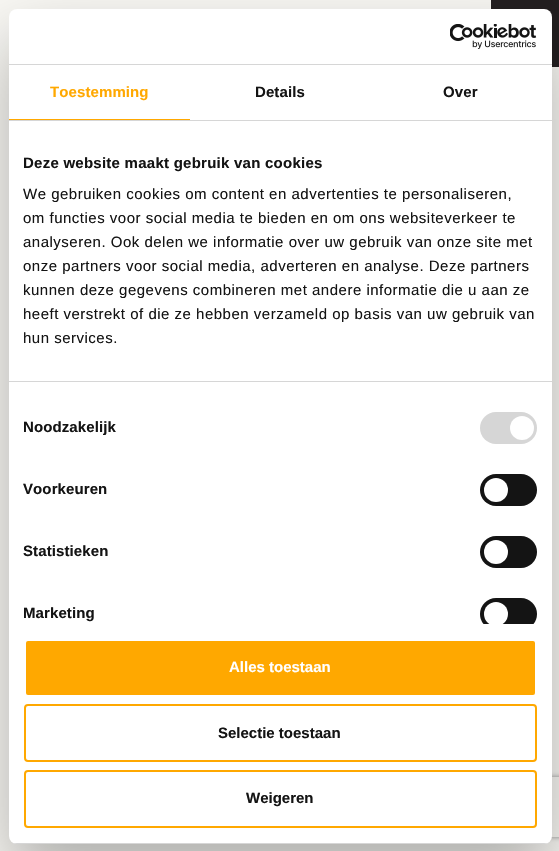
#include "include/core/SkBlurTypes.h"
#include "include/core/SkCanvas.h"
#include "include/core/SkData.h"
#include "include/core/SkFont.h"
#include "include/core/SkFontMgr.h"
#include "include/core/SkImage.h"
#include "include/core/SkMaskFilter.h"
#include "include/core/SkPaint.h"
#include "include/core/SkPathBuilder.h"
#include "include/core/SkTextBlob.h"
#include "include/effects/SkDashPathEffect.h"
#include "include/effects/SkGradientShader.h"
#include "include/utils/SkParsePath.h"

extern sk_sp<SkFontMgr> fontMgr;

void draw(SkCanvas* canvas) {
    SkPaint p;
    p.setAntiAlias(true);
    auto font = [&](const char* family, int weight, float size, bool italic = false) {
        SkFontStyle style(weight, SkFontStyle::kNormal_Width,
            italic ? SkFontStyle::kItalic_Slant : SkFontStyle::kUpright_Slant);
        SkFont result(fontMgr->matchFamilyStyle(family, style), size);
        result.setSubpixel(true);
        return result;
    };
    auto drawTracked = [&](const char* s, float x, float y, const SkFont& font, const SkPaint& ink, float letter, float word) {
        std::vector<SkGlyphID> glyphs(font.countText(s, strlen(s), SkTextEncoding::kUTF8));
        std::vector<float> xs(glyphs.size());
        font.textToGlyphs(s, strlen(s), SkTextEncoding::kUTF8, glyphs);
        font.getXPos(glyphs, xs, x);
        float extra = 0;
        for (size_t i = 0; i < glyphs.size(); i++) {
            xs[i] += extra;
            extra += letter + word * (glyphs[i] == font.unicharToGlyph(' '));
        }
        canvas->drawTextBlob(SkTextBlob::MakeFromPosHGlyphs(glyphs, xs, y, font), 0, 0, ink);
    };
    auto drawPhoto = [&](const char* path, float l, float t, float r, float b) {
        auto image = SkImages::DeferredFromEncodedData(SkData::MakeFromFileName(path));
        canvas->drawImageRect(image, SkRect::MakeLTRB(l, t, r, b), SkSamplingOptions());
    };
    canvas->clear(0xFFF9F8F4);
    p.setColor(0xFF231F20);
    canvas->drawRect(SkRect::MakeLTRB(491, 0, 559, 67), p);
    p.setColor(0x4D000000);
    p.setMaskFilter(SkMaskFilter::MakeBlur(kNormal_SkBlurStyle, 34));
    canvas->drawRoundRect(SkRect::MakeLTRB(9, 41, 552, 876), 8, 8, p);
    p.setMaskFilter(nullptr);
    canvas->save();
    canvas->clipPath(SkPathBuilder(SkPathFillType::kEvenOdd).moveTo(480, 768).lineTo(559, 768).lineTo(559, 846).lineTo(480, 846).close().moveTo(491, 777).lineTo(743, 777).cubicTo(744, 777, 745, 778, 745, 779).lineTo(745, 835).cubicTo(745, 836, 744, 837, 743, 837).lineTo(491, 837).cubicTo(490, 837, 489, 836, 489, 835).lineTo(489, 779).cubicTo(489, 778, 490, 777, 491, 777).close().detach(), true);
    p.setColor(0xFF808080);
    p.setMaskFilter(SkMaskFilter::MakeBlur(kNormal_SkBlurStyle, 2.5f));
    canvas->drawRoundRect(SkRect::MakeLTRB(489, 777, 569, 837), 2, 2, p);
    p.setMaskFilter(nullptr);
    canvas->restore();
    p.setColor(0xFFFFFFFF);
    canvas->drawRoundRect(SkRect::MakeLTRB(9, 9, 552, 844), 8, 8, p);
    p.setColor(0xFFD6D6D6);
    canvas->drawRect(SkRect::MakeLTRB(9, 64, 552, 65), p);
    drawPhoto("media/1.png", 450, 24, 537, 49);
    canvas->drawRect(SkRect::MakeLTRB(9, 120, 552, 121), p);
    p.setColor(0xFFFFA800);
    canvas->drawRect(SkRect::MakeLTRB(9, 119, 190, 120), p);
    auto font1 = font("Liberation Sans", 700, 15);
    drawTracked("Toestemming", 50, 97, font1, p, 0.1f, 0);
    p.setColor(0xFF141414);
    drawTracked("Details", 255, 97, font1, p, 0.1f, 0);
    drawTracked("Over", 443, 97, font1, p, 0.1f, 0);
    p.setColor(0xFFD6D6D6);
    canvas->drawRect(SkRect::MakeLTRB(9, 381, 552, 382), p);
    p.setColor(0xFF141414);
    drawTracked("Deze website maakt gebruik van cookies", 23, 168, font1, p, 0.25f, 0);
    auto font2 = font("Liberation Sans", 400, 15);
    {
        const struct { const char* s; float x, y; } items[] = {
            {"We gebruiken cookies om content en advertenties te personaliseren,", 23, 199},
            {"om functies voor social media te bieden en om ons websiteverkeer te", 23, 223},
            {"analyseren. Ook delen we informatie over uw gebruik van onze site met", 23, 247},
            {"onze partners voor social media, adverteren en analyse. Deze partners", 23, 271},
            {"kunnen deze gegevens combineren met andere informatie die u aan ze", 23, 295},
            {"heeft verstrekt of die ze hebben verzameld op basis van uw gebruik van", 23, 319},
            {"hun services.", 23, 343},
        };
        for (auto [s, x, y] : items) {
            drawTracked(s, x, y, font2, p, 0.5f, 0);
        }
    }
    drawTracked("Noodzakelijk", 23, 432, font1, p, 0.1f, 0);
    p.setColor(0xFFD6D6D6);
    canvas->drawRoundRect(SkRect::MakeLTRB(480, 412, 537, 444), 16, 16, p);
    p.setColor(0xFFFFFFFF);
    canvas->drawCircle(522, 428, 12, p);
    p.setColor(0xFF141414);
    drawTracked("Voorkeuren", 23, 494, font1, p, 0.1f, 0);
    canvas->drawRoundRect(SkRect::MakeLTRB(480, 474, 537, 506), 16, 16, p);
    p.setColor(0xFFFFFFFF);
    canvas->drawCircle(496, 490, 12, p);
    p.setColor(0xFF141414);
    drawTracked("Statistieken", 23, 556, font1, p, 0.1f, 0);
    canvas->drawRoundRect(SkRect::MakeLTRB(480, 536, 537, 568), 16, 16, p);
    p.setColor(0xFFFFFFFF);
    canvas->drawCircle(496, 552, 12, p);
    p.setColor(0xFF141414);
    drawTracked("Marketing", 23, 618, font1, p, 0.1f, 0);
    canvas->save();
    canvas->clipRect(SkRect::MakeLTRB(9, 121, 552, 624));
    canvas->drawRoundRect(SkRect::MakeLTRB(480, 598, 537, 630), 16, 16, p);
    p.setColor(0xFFFFFFFF);
    canvas->drawCircle(496, 614, 12, p);
    canvas->restore();
    canvas->save();
    canvas->clipPath(SkPathBuilder().moveTo(17, 9).lineTo(544, 9).cubicTo(548.5f, 9, 552, 12.5f, 552, 17).lineTo(552, 836).cubicTo(552, 840.5f, 548.5f, 844, 544, 844).lineTo(17, 844).cubicTo(12.5f, 844, 9, 840.5f, 9, 836).lineTo(9, 17).cubicTo(9, 12.5f, 12.5f, 9, 17, 9).close().detach(), true);
    p.setColor(0xFFD6D6D6);
    canvas->drawRect(SkRect::MakeLTRB(9, 843, 552, 844), p);
    canvas->restore();
    p.setColor(0xFFFFA800);
    canvas->drawRoundRect(SkRect::MakeLTRB(25, 640, 536, 696), 3, 3, p);
    p.setStyle(SkPaint::kStroke_Style);
    p.setStrokeWidth(2);
    p.setColor(0xFFFFFFFF);
    canvas->drawRoundRect(SkRect::MakeLTRB(25, 640, 536, 696), 3, 3, p);
    p.setStyle(SkPaint::kFill_Style);
    canvas->drawString("Alles toestaan", 229, 672, font1, p);
    p.setStyle(SkPaint::kStroke_Style);
    p.setColor(0xFFFFA800);
    canvas->drawRoundRect(SkRect::MakeLTRB(25, 705, 536, 761), 3, 3, p);
    p.setStyle(SkPaint::kFill_Style);
    p.setColor(0xFF141414);
    canvas->drawString("Selectie toestaan", 218, 738, font1, p);
    p.setStyle(SkPaint::kStroke_Style);
    p.setColor(0xFFFFA800);
    canvas->drawRoundRect(SkRect::MakeLTRB(25, 771, 536, 827), 3, 3, p);
    p.setStyle(SkPaint::kFill_Style);
    p.setColor(0xFF141414);
    canvas->drawString("Weigeren", 246, 803, font1, p);
}
